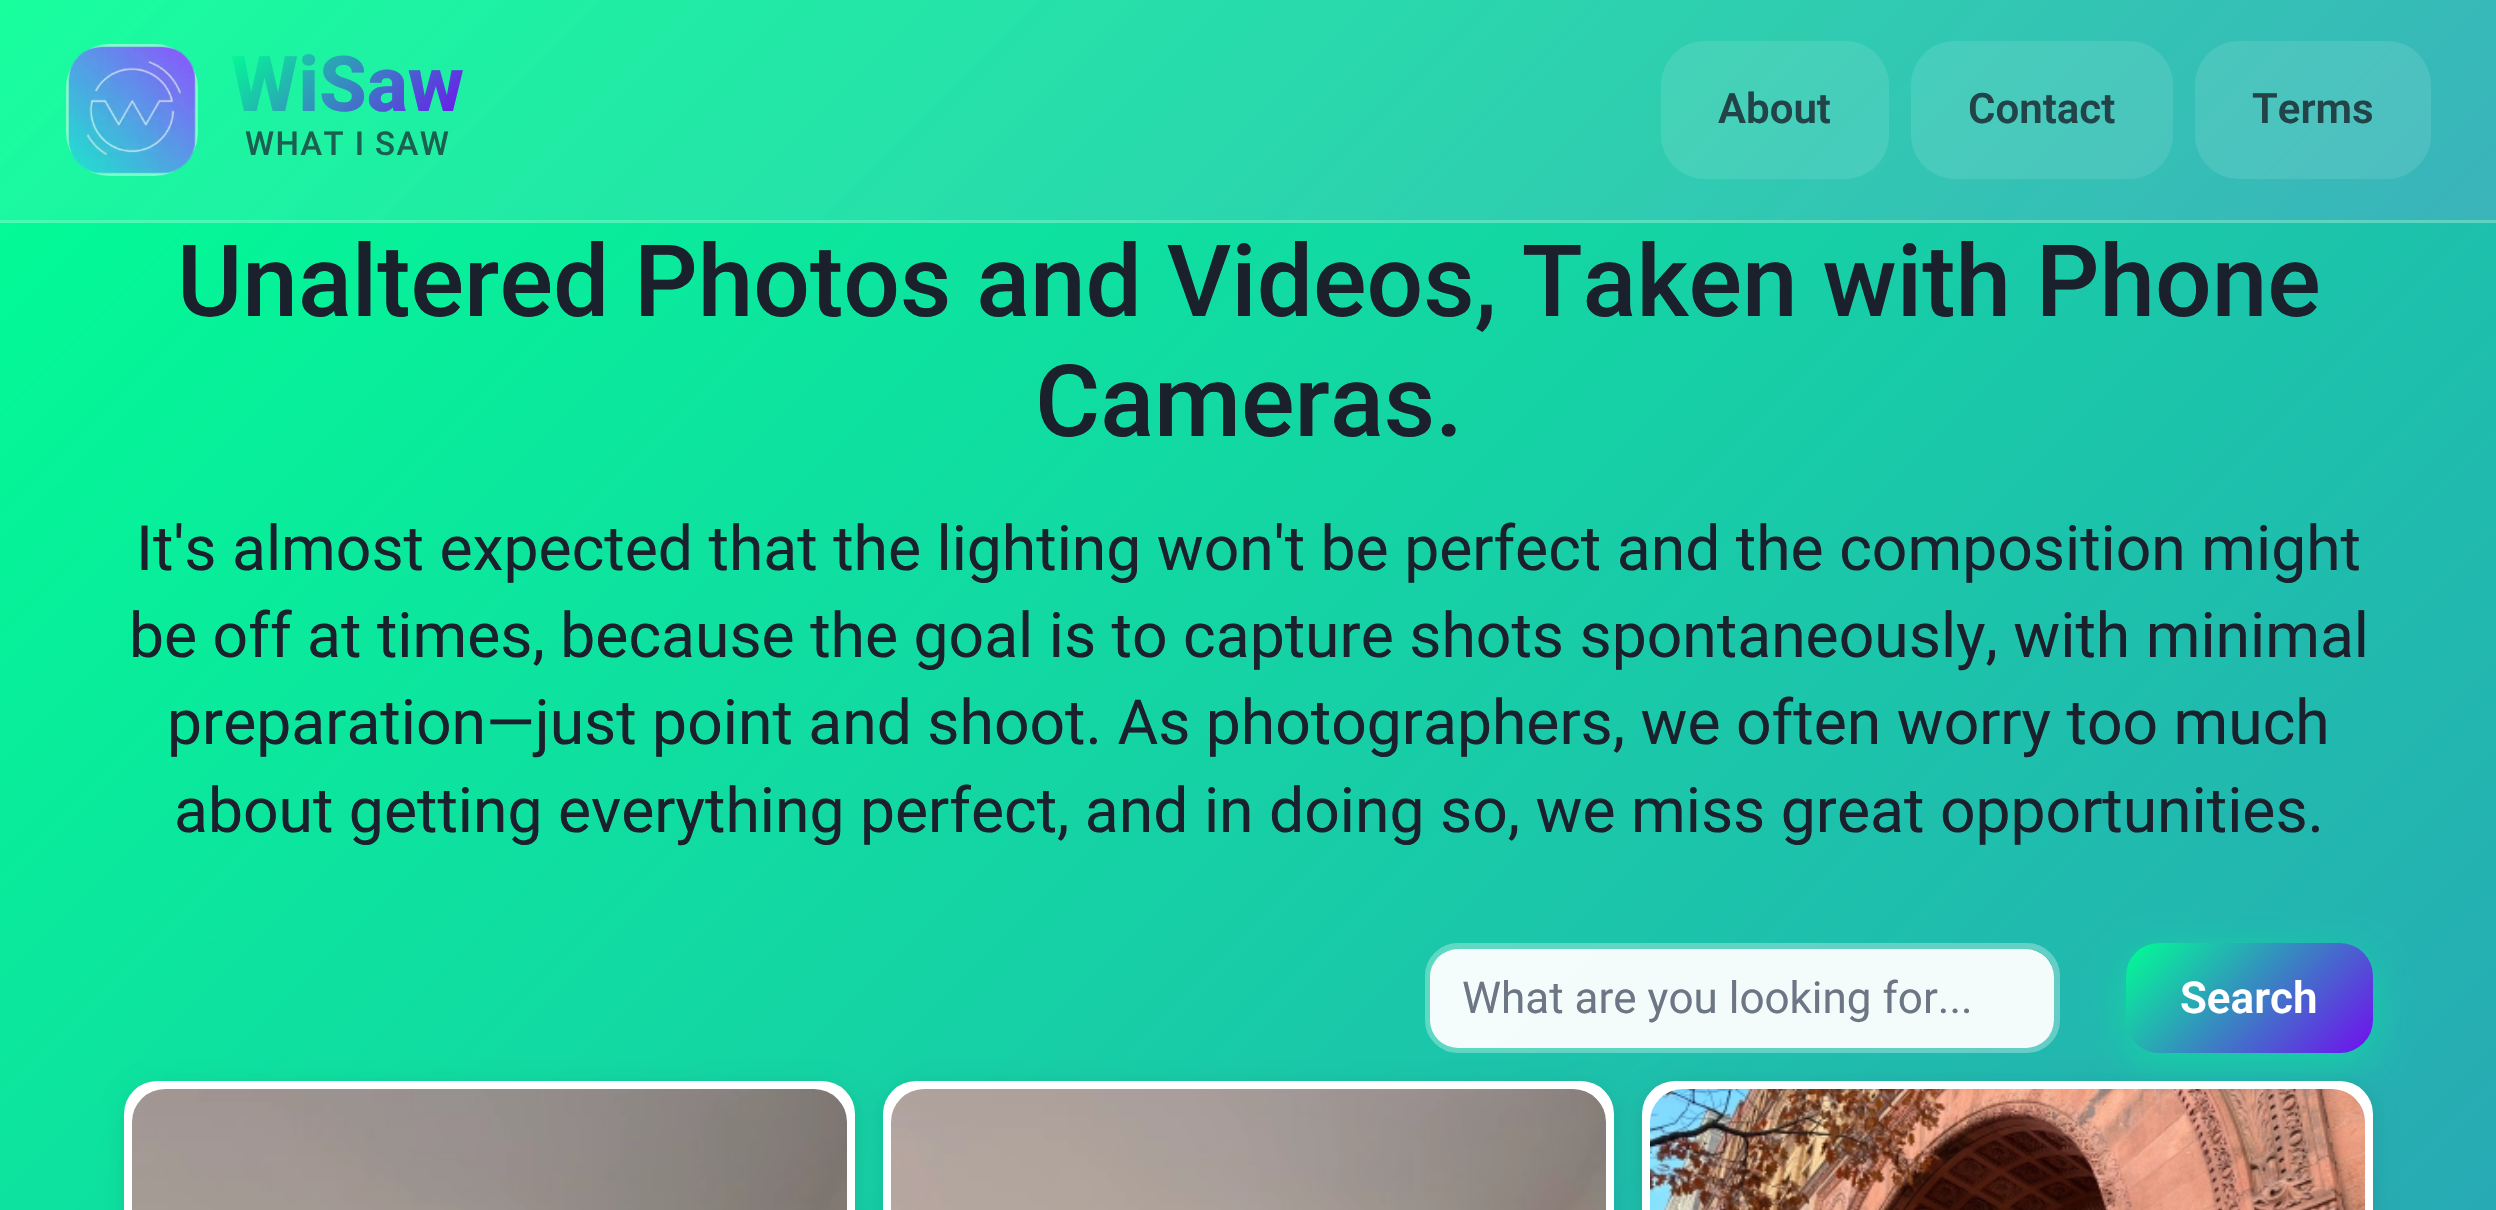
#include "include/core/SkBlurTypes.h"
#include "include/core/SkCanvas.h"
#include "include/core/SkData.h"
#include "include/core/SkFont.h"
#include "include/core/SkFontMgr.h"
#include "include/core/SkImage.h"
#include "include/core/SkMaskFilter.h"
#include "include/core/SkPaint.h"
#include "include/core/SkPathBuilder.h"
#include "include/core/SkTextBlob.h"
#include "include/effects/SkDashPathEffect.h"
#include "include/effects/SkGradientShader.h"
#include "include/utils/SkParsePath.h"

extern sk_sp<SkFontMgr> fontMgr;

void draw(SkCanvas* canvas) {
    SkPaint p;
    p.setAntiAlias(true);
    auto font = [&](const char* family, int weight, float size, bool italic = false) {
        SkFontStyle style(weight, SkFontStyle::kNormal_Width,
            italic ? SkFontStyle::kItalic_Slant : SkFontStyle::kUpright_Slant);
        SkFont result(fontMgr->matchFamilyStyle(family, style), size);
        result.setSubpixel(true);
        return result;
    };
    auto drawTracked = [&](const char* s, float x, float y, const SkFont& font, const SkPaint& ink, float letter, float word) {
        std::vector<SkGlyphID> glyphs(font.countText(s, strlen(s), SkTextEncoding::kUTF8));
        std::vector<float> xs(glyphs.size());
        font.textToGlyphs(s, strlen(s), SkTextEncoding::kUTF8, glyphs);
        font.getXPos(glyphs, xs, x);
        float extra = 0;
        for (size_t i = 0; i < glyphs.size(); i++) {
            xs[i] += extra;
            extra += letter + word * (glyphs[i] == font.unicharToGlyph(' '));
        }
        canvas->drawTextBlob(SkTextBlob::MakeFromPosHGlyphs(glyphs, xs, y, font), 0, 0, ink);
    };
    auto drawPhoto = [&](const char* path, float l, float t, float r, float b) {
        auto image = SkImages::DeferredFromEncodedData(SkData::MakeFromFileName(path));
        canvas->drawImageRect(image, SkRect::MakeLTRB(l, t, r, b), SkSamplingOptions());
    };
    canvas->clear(0xFFFFFFFF);
    {
        const SkColor colors[] = {0xFF00FF94, 0xFF720CF0};
        const float stops[] = {0, 1};
        const SkPoint ends[] = {{-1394, 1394}, {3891, 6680}};
        p.setShader(SkGradientShader::MakeLinear(ends, colors, stops, 2, SkTileMode::kClamp));
        p.setAlpha(255);
    }
    canvas->drawRect(SkRect::MakeLTRB(0, 223, 2496, 1210), p);
    {
        const SkColor colors[] = {0xFF1AFF9F, 0xFF8024F2};
        const float stops[] = {0, 1};
        const SkPoint ends[] = {{-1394, 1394}, {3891, 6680}};
        p.setShader(SkGradientShader::MakeLinear(ends, colors, stops, 2, SkTileMode::kClamp));
        p.setAlpha(255);
    }
    canvas->drawRect(SkRect::MakeLTRB(0, 0, 2496, 220), p);
    {
        const SkColor colors[] = {0xFF48FFB2, 0xFF9950F5};
        const float stops[] = {0, 1};
        const SkPoint ends[] = {{-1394, 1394}, {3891, 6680}};
        p.setShader(SkGradientShader::MakeLinear(ends, colors, stops, 2, SkTileMode::kClamp));
        p.setAlpha(255);
    }
    canvas->drawRect(SkRect::MakeLTRB(0, 220, 2496, 223), p);
    {
        const SkColor colors[] = {0x1A00FF94, 0x1A720CF0};
        const float stops[] = {0, 1};
        const SkPoint ends[] = {{569, -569}, {1928, 789}};
        p.setShader(SkGradientShader::MakeLinear(ends, colors, stops, 2, SkTileMode::kClamp));
        p.setAlpha(255);
    }
    canvas->drawRect(SkRect::MakeLTRB(0, 0, 2496, 220), p);
    p.setShader(nullptr);
    p.setColor(0x33FFFFFF);
    canvas->drawRoundRect(SkRect::MakeLTRB(66, 44, 198, 176), 44, 44, p);
    p.setStyle(SkPaint::kStroke_Style);
    p.setStrokeWidth(3);
    p.setColor(0x4DFFFFFF);
    canvas->drawRoundRect(SkRect::MakeLTRB(67.5f, 45.5f, 196.5f, 174.5f), 42.5f, 42.5f, p);
    drawPhoto("media/1.png", 68, 46, 196, 174);
    auto font1 = font("Roboto", 800, 77);
    p.setStyle(SkPaint::kFill_Style);
    {
        const SkColor colors[] = {0xFF00FF94, 0xFF720CF0};
        const float stops[] = {0, 1};
        const SkPoint ends[] = {{270, 9}, {425, 164}};
        p.setShader(SkGradientShader::MakeLinear(ends, colors, stops, 2, SkTileMode::kClamp));
        p.setAlpha(255);
    }
    canvas->drawString("WiSaw", 231, 111, font1, p);
    auto font2 = font("Roboto", 500, 33);
    p.setShader(nullptr);
    p.setColor(0xFF1B5F50);
    drawTracked("WHAT I SAW", 245, 155, font2, p, 1.4f, 0);
    p.setColor(0x1AFFFFFF);
    canvas->drawRoundRect(SkRect::MakeLTRB(1661, 41, 1889, 179), 44, 44, p);
    auto font3 = font("Roboto", 600, 42);
    p.setColor(0xFF224348);
    canvas->drawString("About", 1718, 123, font3, p);
    p.setColor(0x1AFFFFFF);
    canvas->drawRoundRect(SkRect::MakeLTRB(1911, 41, 2173, 179), 44, 44, p);
    p.setColor(0xFF224348);
    canvas->drawString("Contact", 1968, 123, font3, p);
    p.setColor(0x1AFFFFFF);
    canvas->drawRoundRect(SkRect::MakeLTRB(2195, 41, 2431, 179), 44, 44, p);
    p.setColor(0xFF224348);
    canvas->drawString("Terms", 2252, 123, font3, p);
    auto font4 = font("Roboto", 500, 99.9f);
    p.setColor(0xFF1A202C);
    canvas->drawString("Unaltered Photos and Videos, Taken with Phone", 177, 316, font4, p);
    canvas->drawString("Cameras.", 1035, 436, font4, p);
    auto font5 = font("Roboto", 400, 62.4f);
    {
        const struct { const char* s; float x, y; } items[] = {
            {"It's almost expected that the lighting won't be perfect and the composition might", 136, 570},
            {"be off at times, because the goal is to capture shots spontaneously, with minimal", 129, 657},
            {"preparation—just point and shoot. As photographers, we often worry too much", 167, 744},
            {"about getting everything perfect, and in doing so, we miss great opportunities.", 174, 832},
        };
        for (auto [s, x, y] : items) {
            canvas->drawString(s, x, y, font5, p);
        }
    }
    p.setColor(0xF2FFFFFF);
    canvas->drawRoundRect(SkRect::MakeLTRB(1430, 949, 2054, 1048), 28, 28, p);
    p.setStyle(SkPaint::kStroke_Style);
    p.setStrokeWidth(6);
    p.setColor(0x4DFFFFFF);
    canvas->drawRoundRect(SkRect::MakeLTRB(1428, 946, 2057, 1050), 30, 30, p);
    auto font6 = font("Roboto", 400, 44);
    p.setStyle(SkPaint::kFill_Style);
    p.setColor(0xFF6C7685);
    canvas->drawString("What are you looking for...", 1462, 1013, font6, p);
    p.setColor(0x6600FF94);
    p.setMaskFilter(SkMaskFilter::MakeBlur(kNormal_SkBlurStyle, 20.5f));
    canvas->drawRoundRect(SkRect::MakeLTRB(2126, 954, 2373, 1064), 33, 33, p);
    p.setMaskFilter(nullptr);
    {
        const SkColor colors[] = {0xFF00FF94, 0xFF720CF0};
        const float stops[] = {0, 1};
        const SkPoint ends[] = {{2160, 909}, {2339, 1088}};
        p.setShader(SkGradientShader::MakeLinear(ends, colors, stops, 2, SkTileMode::kClamp));
        p.setAlpha(255);
    }
    canvas->drawRoundRect(SkRect::MakeLTRB(2126, 943, 2373, 1053), 33, 33, p);
    auto font7 = font("Roboto", 600, 44);
    p.setShader(nullptr);
    p.setColor(0xFFFFFFFF);
    canvas->drawString("Search", 2180, 1013, font7, p);
    p.setColor(0x1A000000);
    p.setMaskFilter(SkMaskFilter::MakeBlur(kNormal_SkBlurStyle, 11));
    canvas->drawRoundRect(SkRect::MakeLTRB(124, 1086, 855, 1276), 33, 33, p);
    p.setMaskFilter(nullptr);
    p.setColor(0xFFFFFFFF);
    canvas->drawRoundRect(SkRect::MakeLTRB(124, 1081, 855, 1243), 33, 33, p);
    drawPhoto("media/2.png", 132, 1089, 847, 1210);
    p.setColor(0x1A000000);
    p.setMaskFilter(SkMaskFilter::MakeBlur(kNormal_SkBlurStyle, 11));
    canvas->drawRoundRect(SkRect::MakeLTRB(883, 1086, 1614, 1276), 33, 33, p);
    p.setMaskFilter(nullptr);
    p.setColor(0xFFFFFFFF);
    canvas->drawRoundRect(SkRect::MakeLTRB(883, 1081, 1614, 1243), 33, 33, p);
    drawPhoto("media/3.png", 891, 1089, 1606, 1210);
    p.setColor(0x1A000000);
    p.setMaskFilter(SkMaskFilter::MakeBlur(kNormal_SkBlurStyle, 11));
    canvas->drawRoundRect(SkRect::MakeLTRB(1642, 1086, 2373, 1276), 33, 33, p);
    p.setMaskFilter(nullptr);
    p.setColor(0xFFFFFFFF);
    canvas->drawRoundRect(SkRect::MakeLTRB(1642, 1081, 2373, 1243), 33, 33, p);
    drawPhoto("media/4.png", 1650, 1089, 2365, 1210);
}
